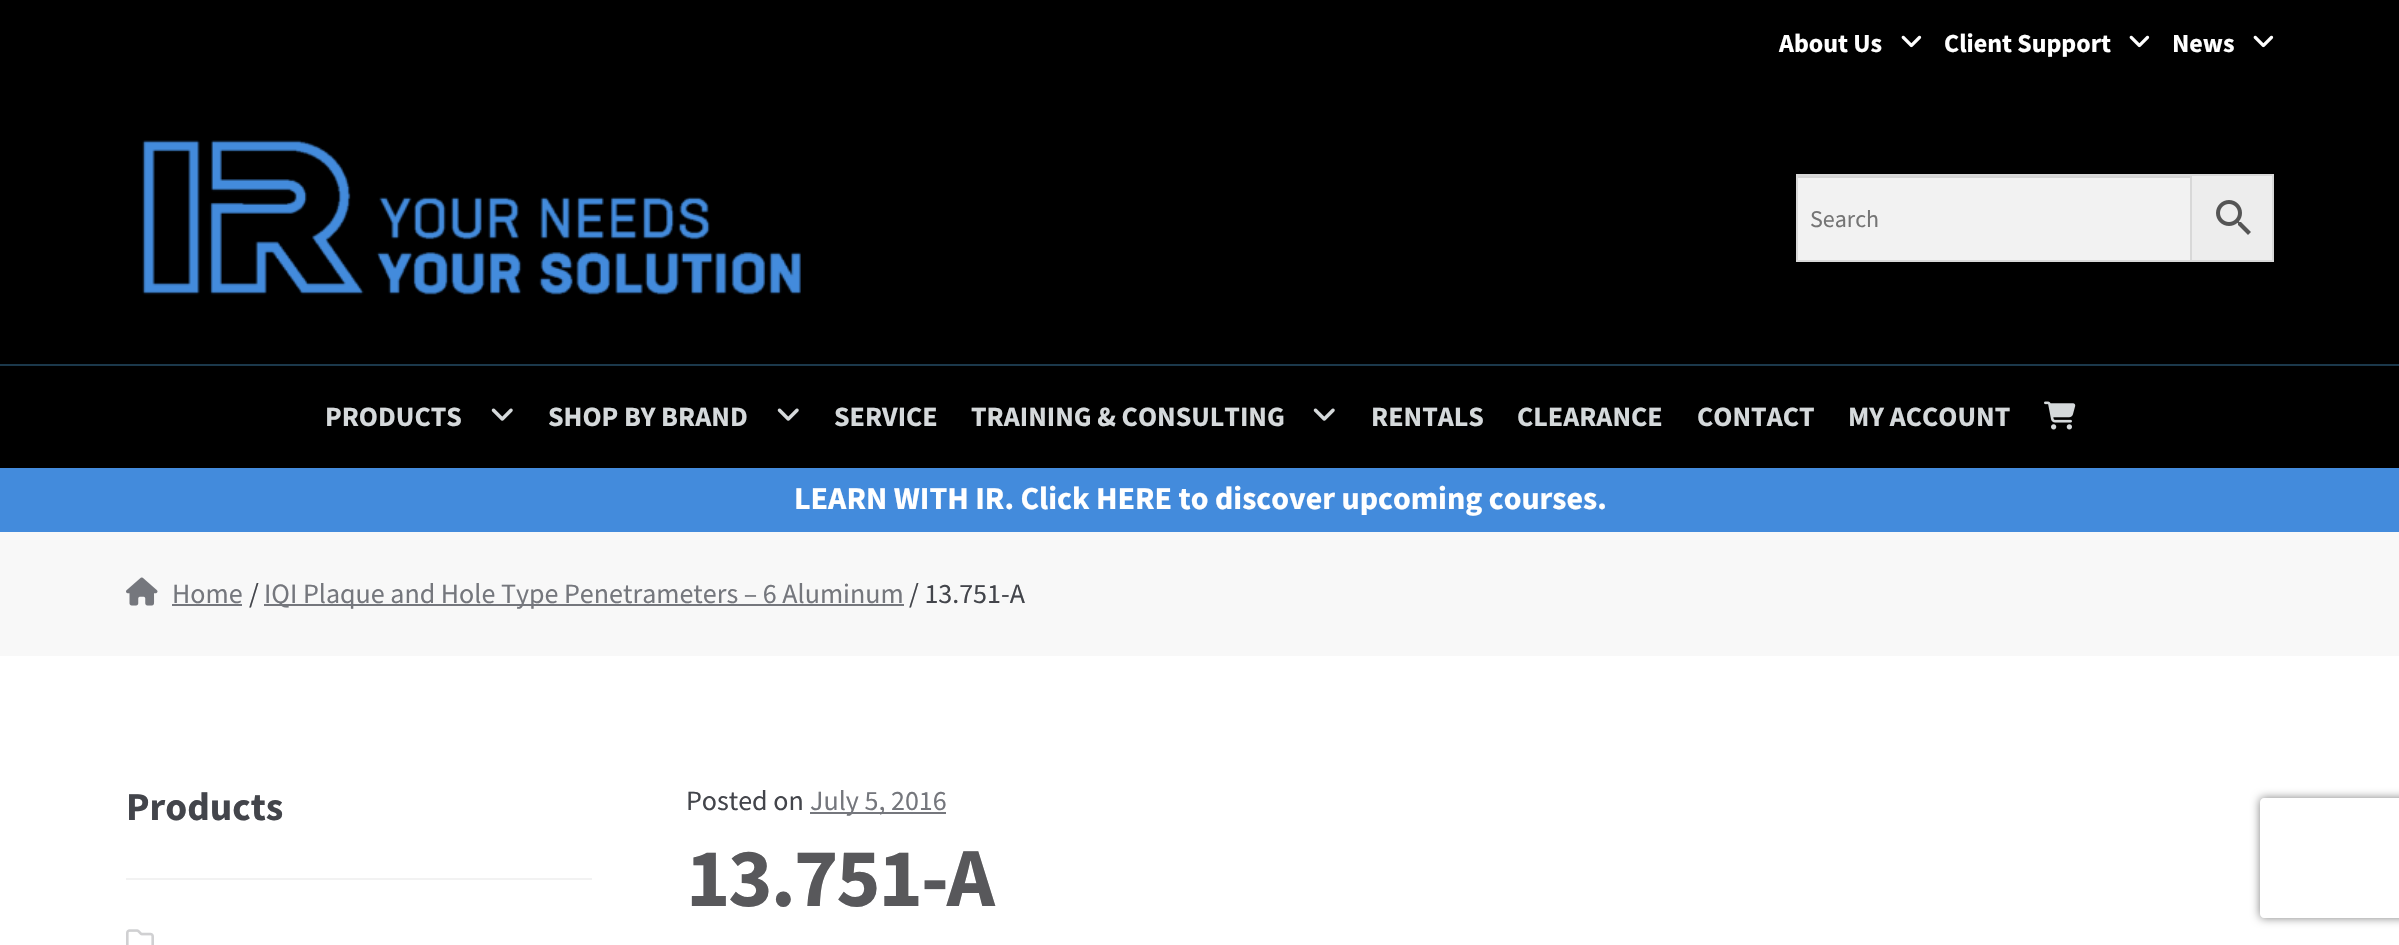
#include "include/core/SkBlurTypes.h"
#include "include/core/SkCanvas.h"
#include "include/core/SkData.h"
#include "include/core/SkFont.h"
#include "include/core/SkFontMgr.h"
#include "include/core/SkImage.h"
#include "include/core/SkMaskFilter.h"
#include "include/core/SkPaint.h"
#include "include/core/SkPathBuilder.h"
#include "include/core/SkTextBlob.h"
#include "include/effects/SkDashPathEffect.h"
#include "include/effects/SkGradientShader.h"
#include "include/utils/SkParsePath.h"

extern sk_sp<SkFontMgr> fontMgr;

void draw(SkCanvas* canvas) {
    SkPaint p;
    p.setAntiAlias(true);
    auto font = [&](const char* family, int weight, float size, bool italic = false) {
        SkFontStyle style(weight, SkFontStyle::kNormal_Width,
            italic ? SkFontStyle::kItalic_Slant : SkFontStyle::kUpright_Slant);
        SkFont result(fontMgr->matchFamilyStyle(family, style), size);
        result.setSubpixel(true);
        return result;
    };
    auto drawTracked = [&](const char* s, float x, float y, const SkFont& font, const SkPaint& ink, float letter, float word) {
        std::vector<SkGlyphID> glyphs(font.countText(s, strlen(s), SkTextEncoding::kUTF8));
        std::vector<float> xs(glyphs.size());
        font.textToGlyphs(s, strlen(s), SkTextEncoding::kUTF8, glyphs);
        font.getXPos(glyphs, xs, x);
        float extra = 0;
        for (size_t i = 0; i < glyphs.size(); i++) {
            xs[i] += extra;
            extra += letter + word * (glyphs[i] == font.unicharToGlyph(' '));
        }
        canvas->drawTextBlob(SkTextBlob::MakeFromPosHGlyphs(glyphs, xs, y, font), 0, 0, ink);
    };
    auto drawPhoto = [&](const char* path, float l, float t, float r, float b) {
        auto image = SkImages::DeferredFromEncodedData(SkData::MakeFromFileName(path));
        canvas->drawImageRect(image, SkRect::MakeLTRB(l, t, r, b), SkSamplingOptions());
    };
    canvas->clear(0xFFFFFFFF);
    p.setColor(0xFF000000);
    canvas->drawRect(SkRect::MakeLTRB(0, 0, 2399, 468), p);
    auto font1 = font("Source Sans Pro", 700, 26);
    p.setColor(0xFFFFFFFF);
    canvas->drawString("About Us", 1779, 52, font1, p);
    drawPhoto("media/1.png", 1901, 35, 1922, 48);
    canvas->drawString("Client Support", 1944, 52, font1, p);
    drawPhoto("media/1.png", 2129, 35, 2150, 48);
    canvas->drawString("News", 2172, 52, font1, p);
    drawPhoto("media/1.png", 2253, 35, 2274, 48);
    drawPhoto("media/2.png", 142, 140, 801, 295);
    p.setColor(0xFFF2F2F2);
    canvas->drawRect(SkRect::MakeLTRB(1798, 178, 2190, 260), p);
    p.setColor(0xFFD4D4D4);
    canvas->drawRect(SkRect::MakeLTRB(1798, 176, 2190, 178), p);
    p.setColor(0xFFEDEDED);
    canvas->drawRect(SkRect::MakeLTRB(2191, 175, 2273, 261), p);
    p.setStyle(SkPaint::kStroke_Style);
    p.setStrokeWidth(2);
    p.setColor(0xFFD8D8D8);
    canvas->drawRect(SkRect::MakeLTRB(2191, 175, 2273, 261), p);
    canvas->drawRect(SkRect::MakeLTRB(1797, 175, 2191, 261), p);
    auto font2 = font("Source Sans Pro", 400, 24);
    p.setStyle(SkPaint::kFill_Style);
    p.setColor(0xFF757575);
    canvas->drawString("Search", 1810, 227, font2, p);
    drawPhoto("media/3.png", 2216, 200, 2251, 235);
    p.setColor(0xFF1B384B);
    canvas->drawRect(SkRect::MakeLTRB(0, 364, 2399, 366), p);
    auto font3 = font("Source Sans Pro", 700, 28);
    p.setColor(0xFFD5D9DB);
    canvas->drawString("PRODUCTS", 325, 426, font3, p);
    drawPhoto("media/4.png", 491, 408, 513, 421);
    canvas->drawString("SHOP BY BRAND", 548, 426, font3, p);
    drawPhoto("media/4.png", 777, 408, 799, 421);
    canvas->drawString("SERVICE", 834, 426, font3, p);
    canvas->drawString("TRAINING & CONSULTING", 971, 426, font3, p);
    drawPhoto("media/4.png", 1313, 408, 1335, 421);
    {
        const struct { const char* s; float x, y; } items[] = {
            {"RENTALS", 1371, 426},
            {"CLEARANCE", 1517, 426},
            {"CONTACT", 1697, 426},
            {"MY ACCOUNT", 1848, 426},
        };
        for (auto [s, x, y] : items) {
            canvas->drawString(s, x, y, font3, p);
        }
    }
    drawPhoto("media/5.png", 2044, 401, 2076, 430);
    p.setColor(0xFF438BDC);
    canvas->drawRect(SkRect::MakeLTRB(0, 468, 2399, 532), p);
    auto font4 = font("Source Sans Pro", 700, 32);
    p.setColor(0xFFFFFFFF);
    canvas->drawString("LEARN WITH IR. Click HERE to discover upcoming courses.", 794, 509, font4, p);
    p.setColor(0xFFF8F8F8);
    canvas->drawRect(SkRect::MakeLTRB(0, 532, 2399, 656), p);
    drawPhoto("media/6.png", 126, 577, 158, 606);
    auto font5 = font("Source Sans Pro", 400, 28);
    p.setColor(0xFF75777D);
    canvas->drawString("Home", 172, 603, font5, p);
    canvas->drawRect(SkRect::MakeLTRB(172, 604, 242, 606), p);
    p.setColor(0xFF43454B);
    canvas->drawString("/", 249, 603, font5, p);
    p.setColor(0xFF75777D);
    canvas->drawRect(SkRect::MakeLTRB(264, 604, 904, 606), p);
    canvas->drawString("IQI Plaque and Hole Type Penetrameters – 6 Aluminum", 264, 603, font5, p);
    p.setColor(0xFF43454B);
    canvas->drawString("/ 13.751-A", 909, 603, font5, p);
    p.setColor(0xFFF2F2F2);
    canvas->drawRect(SkRect::MakeLTRB(126, 878, 592, 880), p);
    auto font6 = font("Source Sans Pro", 700, 39.5f);
    p.setColor(0xFF43454B);
    canvas->drawString("Products", 126, 820, font6, p);
    drawPhoto("media/7.png", 126, 929, 154, 945);
    canvas->drawString("Posted on", 686, 810, font5, p);
    p.setColor(0xFF75777D);
    canvas->drawRect(SkRect::MakeLTRB(810, 812, 946, 814), p);
    canvas->drawString("July 5, 2016", 810, 810, font5, p);
    auto font7 = font("Source Sans Pro", 700, 84);
    p.setColor(0xFF58585B);
    drawTracked("13.751-A", 686, 906, font7, p, -2, 0);
    canvas->save();
    canvas->clipPath(SkPathBuilder(SkPathFillType::kEvenOdd).moveTo(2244, 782).lineTo(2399, 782).lineTo(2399, 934).lineTo(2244, 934).close().moveTo(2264, 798).lineTo(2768, 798).cubicTo(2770, 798, 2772, 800, 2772, 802).lineTo(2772, 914).cubicTo(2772, 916, 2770, 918, 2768, 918).lineTo(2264, 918).cubicTo(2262, 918, 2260, 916, 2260, 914).lineTo(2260, 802).cubicTo(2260, 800, 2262, 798, 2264, 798).close().detach(), true);
    p.setColor(0xFF808080);
    p.setMaskFilter(SkMaskFilter::MakeBlur(kNormal_SkBlurStyle, 5));
    canvas->drawRoundRect(SkRect::MakeLTRB(2260, 798, 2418, 918), 4, 4, p);
    p.setMaskFilter(nullptr);
    canvas->restore();
}
